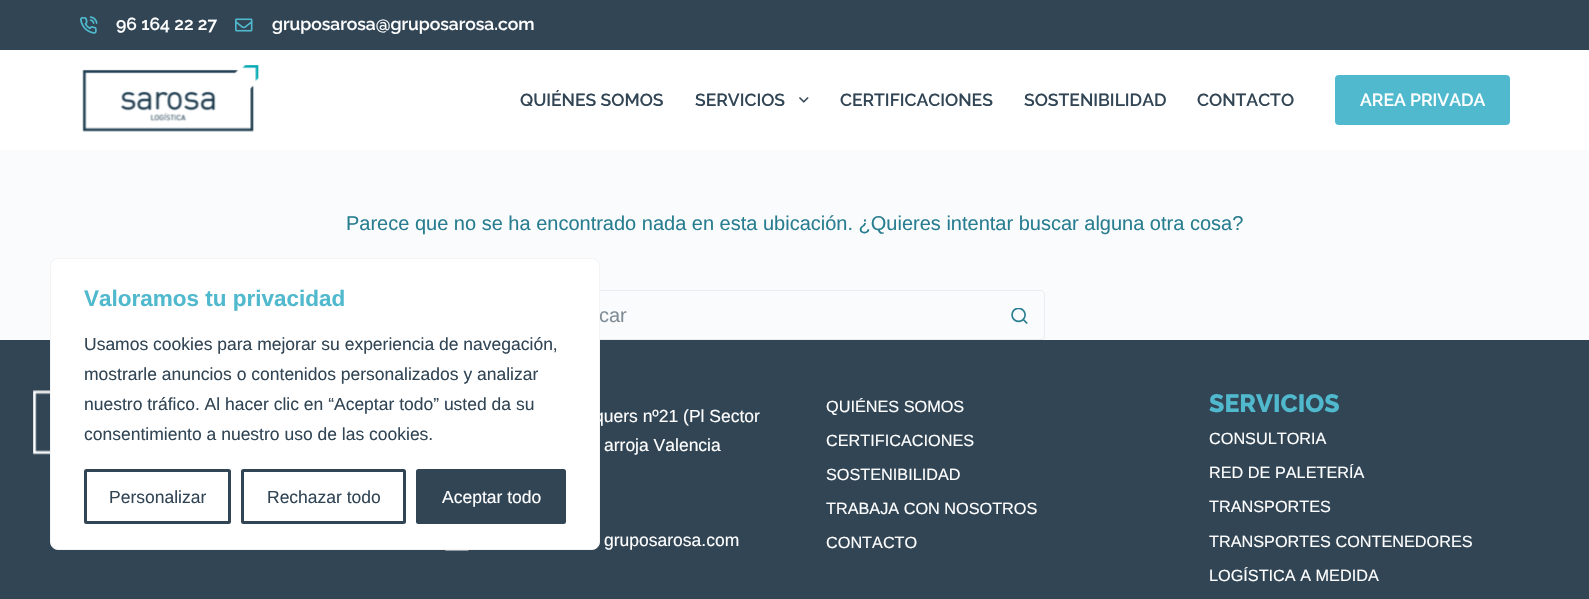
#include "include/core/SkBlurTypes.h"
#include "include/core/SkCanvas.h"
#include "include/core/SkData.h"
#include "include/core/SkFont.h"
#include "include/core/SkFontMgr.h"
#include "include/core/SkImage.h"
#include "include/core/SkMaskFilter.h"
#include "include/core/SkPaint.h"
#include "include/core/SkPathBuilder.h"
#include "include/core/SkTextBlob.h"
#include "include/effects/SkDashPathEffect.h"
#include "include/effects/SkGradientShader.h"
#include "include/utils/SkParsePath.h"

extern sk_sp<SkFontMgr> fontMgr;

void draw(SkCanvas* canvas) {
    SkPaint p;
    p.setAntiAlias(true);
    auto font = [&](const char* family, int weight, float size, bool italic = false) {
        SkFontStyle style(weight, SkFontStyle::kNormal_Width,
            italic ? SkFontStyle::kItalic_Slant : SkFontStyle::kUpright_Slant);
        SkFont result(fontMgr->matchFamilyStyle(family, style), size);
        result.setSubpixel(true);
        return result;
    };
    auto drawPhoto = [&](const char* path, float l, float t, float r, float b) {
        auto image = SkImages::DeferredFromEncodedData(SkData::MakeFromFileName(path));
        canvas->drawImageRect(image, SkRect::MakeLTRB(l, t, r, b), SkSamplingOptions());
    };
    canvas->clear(0xFFFAFBFC);
    p.setColor(0xFFFFFFFF);
    canvas->drawRect(SkRect::MakeLTRB(0, 50, 1589, 150), p);
    p.setColor(0xFF314555);
    canvas->drawRect(SkRect::MakeLTRB(0, 0, 1589, 50), p);
    drawPhoto("media/1.png", 80, 16, 98, 34);
    auto font1 = font("Raleway", 600, 17.5f);
    p.setColor(0xFFFFFFFF);
    canvas->drawString("96 164 22 27", 116, 30, font1, p);
    drawPhoto("media/2.png", 235, 18, 253, 32);
    canvas->drawString("gruposarosa@gruposarosa.com", 272, 30, font1, p);
    drawPhoto("media/3.png", 82, 65, 259, 132);
    p.setColor(0xFF314555);
    canvas->drawString("QUIÉNES SOMOS", 520, 106, font1, p);
    canvas->drawString("SERVICIOS", 695, 106, font1, p);
    drawPhoto("media/4.png", 799, 97, 809, 103);
    {
        const struct { const char* s; float x, y; } items[] = {
            {"CERTIFICACIONES", 840, 106},
            {"SOSTENIBILIDAD", 1024, 106},
            {"CONTACTO", 1197, 106},
        };
        for (auto [s, x, y] : items) {
            canvas->drawString(s, x, y, font1, p);
        }
    }
    p.setColor(0xFF50B9CE);
    canvas->drawRoundRect(SkRect::MakeLTRB(1335, 75, 1510, 125), 4, 4, p);
    p.setColor(0xFFFFFFFF);
    canvas->drawString("AREA PRIVADA", 1360, 106, font1, p);
    auto font2 = font("Liberation Sans", 400, 20);
    p.setColor(0xFF287E90);
    canvas->drawString("Parece que no se ha encontrado nada en esta ubicación. ¿Quieres intentar buscar alguna otra cosa?", 346, 230, font2, p);
    p.setColor(0xFFEAEDF0);
    canvas->drawPath(SkPathBuilder(SkPathFillType::kEvenOdd).moveTo(549, 290).lineTo(995, 290).lineTo(995, 340).lineTo(549, 340).cubicTo(547, 340, 545, 338, 545, 336).lineTo(545, 294).cubicTo(545, 292, 547, 290, 549, 290).close().moveTo(549, 291).lineTo(995, 291).lineTo(995, 339).lineTo(549, 339).cubicTo(547, 339, 546, 338, 546, 336).lineTo(546, 294).cubicTo(546, 292, 547, 291, 549, 291).close().detach(), p);
    p.setColor(0xFF818E98);
    canvas->drawString("car", 599, 322, font2, p);
    p.setColor(0xFFEAEDF0);
    canvas->drawPath(SkPathBuilder(SkPathFillType::kEvenOdd).moveTo(995, 290).lineTo(1041, 290).cubicTo(1043, 290, 1045, 292, 1045, 294).lineTo(1045, 336).cubicTo(1045, 338, 1043, 340, 1041, 340).lineTo(995, 340).close().moveTo(995, 291).lineTo(1041, 291).cubicTo(1043, 291, 1044, 292, 1044, 294).lineTo(1044, 336).cubicTo(1044, 338, 1043, 339, 1041, 339).lineTo(995, 339).close().detach(), p);
    drawPhoto("media/5.png", 1011, 308, 1028, 324);
    p.setColor(0xFF314555);
    canvas->drawRect(SkRect::MakeLTRB(0, 340, 1589, 599), p);
    drawPhoto("media/6.png", 33, 390, 50, 455);
    auto font3 = font("Liberation Sans", 400, 17.5f);
    p.setColor(0xFFFFFFFF);
    {
        const struct { const char* s; float x, y; } items[] = {
            {"quers nº21 (Pl Sector", 594, 422},
            {"arroja Valencia", 604, 451},
            {"gruposarosa.com", 604, 546},
        };
        for (auto [s, x, y] : items) {
            canvas->drawString(s, x, y, font3, p);
        }
    }
    drawPhoto("media/7.png", 445, 550, 469, 551);
    auto font4 = font("Liberation Sans", 400, 16.25f);
    {
        const struct { const char* s; float x, y; } items[] = {
            {"QUIÉNES SOMOS", 826, 412},
            {"CERTIFICACIONES", 826, 446},
            {"SOSTENIBILIDAD", 826, 480},
            {"TRABAJA CON NOSOTROS", 826, 514},
            {"CONTACTO", 826, 548},
        };
        for (auto [s, x, y] : items) {
            canvas->drawString(s, x, y, font4, p);
        }
    }
    auto font5 = font("Raleway", 800, 25);
    p.setColor(0xFF50B9CE);
    canvas->drawString("SERVICIOS", 1209, 412, font5, p);
    p.setColor(0xFFFFFFFF);
    {
        const struct { const char* s; float x, y; } items[] = {
            {"CONSULTORIA", 1209, 444},
            {"RED DE PALETERÍA", 1209, 478},
            {"TRANSPORTES", 1209, 512},
            {"TRANSPORTES CONTENEDORES", 1209, 547},
            {"LOGÍSTICA A MEDIDA", 1209, 581},
        };
        for (auto [s, x, y] : items) {
            canvas->drawString(s, x, y, font4, p);
        }
    }
    canvas->drawRoundRect(SkRect::MakeLTRB(50.5f, 258.5f, 599.5f, 549.5f), 7.5f, 7.5f, p);
    p.setStyle(SkPaint::kStroke_Style);
    p.setStrokeWidth(1);
    p.setColor(0xFFF4F4F4);
    canvas->drawRoundRect(SkRect::MakeLTRB(50.5f, 258.5f, 599.5f, 549.5f), 7.5f, 7.5f, p);
    auto font6 = font("Liberation Sans", 700, 22.5f);
    p.setStyle(SkPaint::kFill_Style);
    p.setColor(0xFF50B9CE);
    canvas->drawString("Valoramos tu privacidad", 84, 306, font6, p);
    p.setColor(0xFF314555);
    {
        const struct { const char* s; float x, y; } items[] = {
            {"Usamos cookies para mejorar su experiencia de navegación,", 84, 350},
            {"mostrarle anuncios o contenidos personalizados y analizar", 84, 380},
            {"nuestro tráfico. Al hacer clic en “Aceptar todo” usted da su", 84, 410},
            {"consentimiento a nuestro uso de las cookies.", 84, 440},
        };
        for (auto [s, x, y] : items) {
            canvas->drawString(s, x, y, font3, p);
        }
    }
    p.setStyle(SkPaint::kStroke_Style);
    p.setStrokeWidth(3);
    canvas->drawRoundRect(SkRect::MakeLTRB(85.5f, 470.5f, 229.5f, 522.5f), 1, 1, p);
    p.setStyle(SkPaint::kFill_Style);
    canvas->drawString("Personalizar", 109, 503, font3, p);
    p.setStyle(SkPaint::kStroke_Style);
    canvas->drawRoundRect(SkRect::MakeLTRB(242.5f, 470.5f, 404.5f, 522.5f), 1, 1, p);
    p.setStyle(SkPaint::kFill_Style);
    canvas->drawString("Rechazar todo", 267, 503, font3, p);
    canvas->drawRoundRect(SkRect::MakeLTRB(417.5f, 470.5f, 564.5f, 522.5f), 1, 1, p);
    p.setStyle(SkPaint::kStroke_Style);
    canvas->drawRoundRect(SkRect::MakeLTRB(417.5f, 470.5f, 564.5f, 522.5f), 1, 1, p);
    p.setStyle(SkPaint::kFill_Style);
    p.setColor(0xFFFFFFFF);
    canvas->drawString("Aceptar todo", 442, 503, font3, p);
}
